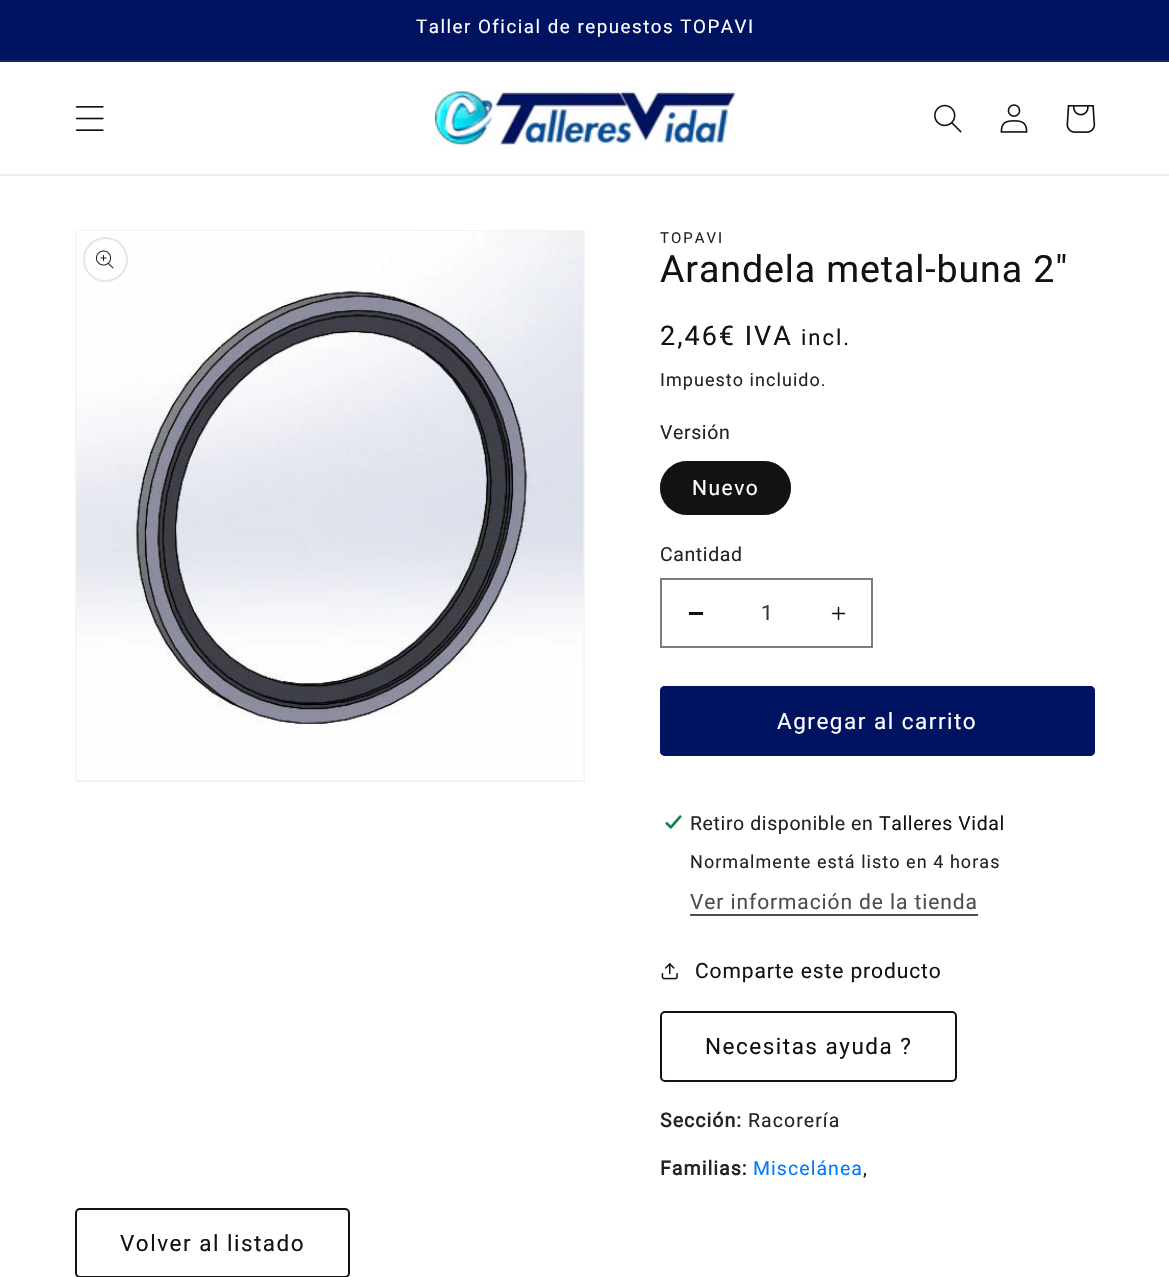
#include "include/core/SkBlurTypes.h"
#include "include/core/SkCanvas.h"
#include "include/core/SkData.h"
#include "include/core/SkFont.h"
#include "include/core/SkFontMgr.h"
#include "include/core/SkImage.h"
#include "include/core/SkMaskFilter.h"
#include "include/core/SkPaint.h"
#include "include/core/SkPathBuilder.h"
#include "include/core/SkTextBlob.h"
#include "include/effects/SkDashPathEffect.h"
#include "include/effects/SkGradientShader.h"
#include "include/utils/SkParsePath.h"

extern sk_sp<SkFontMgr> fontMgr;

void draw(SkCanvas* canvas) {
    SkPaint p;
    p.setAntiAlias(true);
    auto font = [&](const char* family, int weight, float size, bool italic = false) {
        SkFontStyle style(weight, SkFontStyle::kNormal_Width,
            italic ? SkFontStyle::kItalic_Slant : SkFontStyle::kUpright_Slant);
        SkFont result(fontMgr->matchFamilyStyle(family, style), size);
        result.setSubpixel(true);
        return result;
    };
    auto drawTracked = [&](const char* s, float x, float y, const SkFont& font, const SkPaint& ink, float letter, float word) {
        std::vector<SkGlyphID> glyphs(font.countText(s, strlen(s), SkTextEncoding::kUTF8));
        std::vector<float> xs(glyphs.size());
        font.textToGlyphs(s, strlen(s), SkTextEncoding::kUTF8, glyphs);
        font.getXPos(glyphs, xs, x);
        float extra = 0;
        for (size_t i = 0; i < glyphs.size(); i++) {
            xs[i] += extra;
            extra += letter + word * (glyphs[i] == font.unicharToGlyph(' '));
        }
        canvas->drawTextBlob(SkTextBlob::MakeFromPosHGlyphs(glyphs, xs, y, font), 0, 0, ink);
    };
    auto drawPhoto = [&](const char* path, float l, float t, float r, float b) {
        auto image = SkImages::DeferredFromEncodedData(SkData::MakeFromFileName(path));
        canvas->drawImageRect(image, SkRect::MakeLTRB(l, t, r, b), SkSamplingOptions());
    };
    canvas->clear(0xFFFFFFFF);
    p.setColor(0xFF001361);
    canvas->drawRect(SkRect::MakeLTRB(0, 0, 1169, 60), p);
    p.setColor(0xFF14266E);
    canvas->drawRect(SkRect::MakeLTRB(0, 60, 1169, 62), p);
    auto font1 = font("Roboto", 400, 18.75f);
    p.setColor(0xFFFFFFFF);
    drawTracked("Taller Oficial de repuestos TOPAVI", 416, 33, font1, p, 1.5f, 0);
    p.setColor(0xFFECECEC);
    canvas->drawRect(SkRect::MakeLTRB(0, 174, 1169, 176), p);
    drawPhoto("media/1.png", 75, 106, 104, 131);
    drawPhoto("media/2.png", 435, 88, 735, 149);
    drawPhoto("media/3.png", 934, 104, 962, 133);
    drawPhoto("media/4.png", 1000, 104, 1028, 133);
    drawPhoto("media/5.png", 1066, 105, 1096, 133);
    p.setStyle(SkPaint::kStroke_Style);
    p.setStrokeWidth(2);
    p.setColor(0xFFF3F3F3);
    canvas->drawRect(SkRect::MakeLTRB(76, 231, 584, 781), p);
    drawPhoto("media/6.png", 76, 231, 584, 780);
    p.setColor(0xFFE6E6E6);
    canvas->drawCircle(105.5f, 259.5f, 21.5f, p);
    drawPhoto("media/7.png", 96, 250, 114, 269);
    auto font2 = font("Roboto", 400, 15);
    p.setStyle(SkPaint::kFill_Style);
    p.setColor(0xFF212529);
    drawTracked("TOPAVI", 660, 243, font2, p, 2, 0);
    auto font3 = font("Roboto", 400, 37.5f);
    p.setColor(0xFF121212);
    drawTracked("Arandela metal-buna 2\"", 660, 282, font3, p, 0.9f, 0);
    auto font4 = font("Roboto", 400, 27);
    drawTracked("2,46€ IVA", 660, 345, font4, p, 2, 0);
    auto font5 = font("Roboto", 400, 22);
    drawTracked("incl.", 801, 345, font5, p, 2, 0);
    auto font6 = font("Roboto", 400, 18);
    p.setColor(0xFF212529);
    drawTracked("Impuesto incluido.", 660, 386, font6, p, 1.05f, 0);
    auto font7 = font("Roboto", 400, 19.5f);
    drawTracked("Versión", 660, 439, font7, p, 0.6f, 0);
    p.setColor(0xFF121212);
    canvas->drawRoundRect(SkRect::MakeLTRB(660, 461, 791, 515), 27, 27, p);
    p.setStyle(SkPaint::kStroke_Style);
    p.setColor(0x8C121212);
    canvas->drawRoundRect(SkRect::MakeLTRB(661, 462, 790, 514), 26, 26, p);
    auto font8 = font("Roboto", 400, 21);
    p.setStyle(SkPaint::kFill_Style);
    p.setColor(0xFFFFFFFF);
    drawTracked("Nuevo", 692, 495, font8, p, 1.5f, 0);
    p.setColor(0xFF212529);
    drawTracked("Cantidad", 660, 561, font7, p, 0.6f, 0);
    p.setColor(0xFF121212);
    canvas->drawRect(SkRect::MakeLTRB(689, 612, 703, 615), p);
    drawPhoto("media/8.png", 831, 606, 846, 621);
    p.setStyle(SkPaint::kStroke_Style);
    p.setColor(0xFF7D7D7D);
    canvas->drawRect(SkRect::MakeLTRB(661, 579, 872, 647), p);
    p.setStyle(SkPaint::kFill_Style);
    p.setColor(0xFF363636);
    canvas->drawString("1", 761, 620, font8, p);
    p.setColor(0xFF001361);
    canvas->drawRoundRect(SkRect::MakeLTRB(660, 686, 1095, 756), 5, 5, p);
    p.setStyle(SkPaint::kStroke_Style);
    canvas->drawRoundRect(SkRect::MakeLTRB(661, 687, 1094, 755), 4, 4, p);
    auto font9 = font("Roboto", 400, 22.5f);
    p.setStyle(SkPaint::kFill_Style);
    p.setColor(0xFFFFFFFF);
    drawTracked("Agregar al carrito", 777, 729, font9, p, 1.5f, 0);
    drawPhoto("media/9.png", 664, 815, 682, 829);
    p.setColor(0xFF212529);
    drawTracked("Retiro disponible en", 690, 830, font7, p, 0.6f, 0);
    p.setColor(0xFF121212);
    drawTracked("Talleres Vidal", 879, 830, font7, p, 0.6f, 0);
    p.setColor(0xFF212529);
    drawTracked("Normalmente está listo en 4 horas", 690, 868, font6, p, 1.05f, 0);
    p.setColor(0xFF4D4D4D);
    drawTracked("Ver información de la tienda", 690, 909, font8, p, 0.9f, 0);
    canvas->drawRect(SkRect::MakeLTRB(690, 914, 978, 916), p);
    drawPhoto("media/10.png", 661, 963, 678, 980);
    p.setColor(0xFF121212);
    drawTracked("Comparte este producto", 695, 978, font8, p, 0.9f, 0);
    p.setStyle(SkPaint::kStroke_Style);
    canvas->drawRoundRect(SkRect::MakeLTRB(661, 1012, 956, 1081), 4, 4, p);
    p.setStyle(SkPaint::kFill_Style);
    drawTracked("Necesitas ayuda ?", 705, 1054, font9, p, 1.5f, 0);
    auto font10 = font("Roboto", 700, 19.5f);
    p.setColor(0xFF212529);
    drawTracked("Sección:", 660, 1127, font10, p, 1.05f, 0);
    drawTracked("Racorería", 748, 1127, font7, p, 1.05f, 0);
    drawTracked("Familias:", 660, 1175, font10, p, 1.05f, 0);
    p.setColor(0xFF007BFF);
    drawTracked("Miscelánea", 753, 1175, font7, p, 1.05f, 0);
    p.setColor(0xFF212529);
    drawTracked(",", 863, 1175, font7, p, 1.05f, 0);
    p.setStyle(SkPaint::kStroke_Style);
    p.setColor(0xFF121212);
    canvas->drawRoundRect(SkRect::MakeLTRB(76, 1209, 349, 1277), 4, 4, p);
    p.setStyle(SkPaint::kFill_Style);
    drawTracked("Volver al listado", 120, 1251, font9, p, 1.5f, 0);
}
